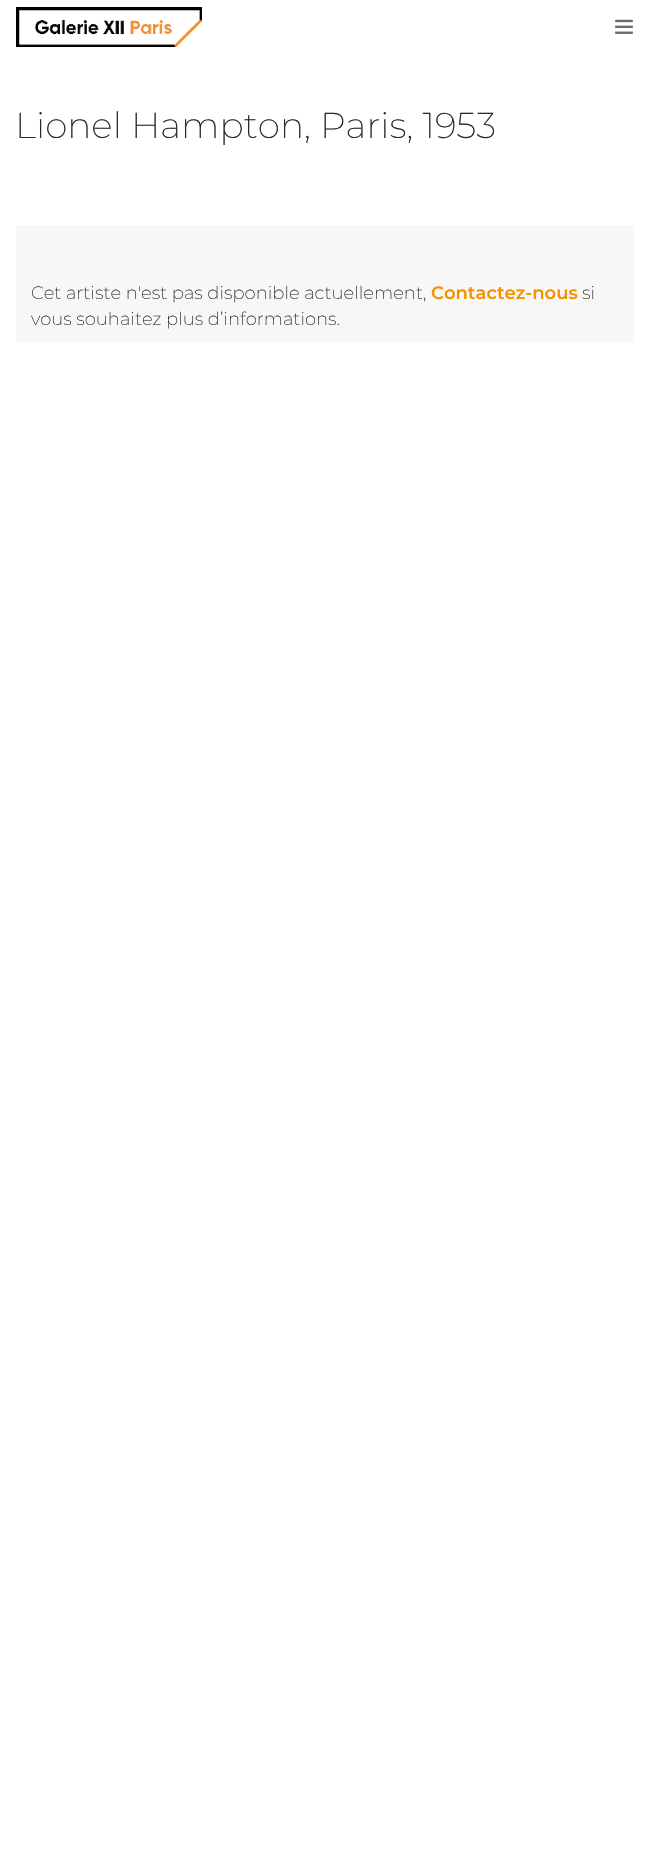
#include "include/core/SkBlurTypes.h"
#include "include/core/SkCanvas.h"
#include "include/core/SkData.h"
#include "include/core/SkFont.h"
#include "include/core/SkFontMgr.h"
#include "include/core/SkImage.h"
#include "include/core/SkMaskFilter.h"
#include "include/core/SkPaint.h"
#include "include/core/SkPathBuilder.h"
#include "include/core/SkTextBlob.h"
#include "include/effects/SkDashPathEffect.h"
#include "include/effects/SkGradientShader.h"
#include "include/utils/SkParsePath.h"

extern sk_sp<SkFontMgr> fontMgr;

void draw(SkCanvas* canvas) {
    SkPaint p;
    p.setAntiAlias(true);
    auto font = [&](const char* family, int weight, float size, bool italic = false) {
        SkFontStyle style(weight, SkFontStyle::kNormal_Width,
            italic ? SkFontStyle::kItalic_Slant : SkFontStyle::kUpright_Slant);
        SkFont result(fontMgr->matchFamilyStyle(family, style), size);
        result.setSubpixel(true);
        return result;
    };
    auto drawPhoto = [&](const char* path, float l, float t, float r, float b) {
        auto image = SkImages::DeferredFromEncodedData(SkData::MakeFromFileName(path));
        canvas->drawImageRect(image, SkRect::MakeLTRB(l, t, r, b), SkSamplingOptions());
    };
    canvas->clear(0xFFFFFFFF);
    drawPhoto("media/1.png", 16, 7, 202, 48);
    drawPhoto("media/2.png", 615, 19, 633, 34);
    auto font1 = font("Montserrat", 200, 36);
    p.setColor(0xFF292929);
    canvas->drawString("Lionel Hampton, Paris, 1953", 15, 138, font1, p);
    p.setColor(0xFFF9F7F5);
    canvas->drawRect(SkRect::MakeLTRB(16, 225, 634, 342), p);
    auto font2 = font("Montserrat", 200, 18);
    p.setColor(0xFF292929);
    canvas->drawString("Cet artiste n'est pas disponible actuellement,", 31, 299, font2, p);
    auto font3 = font("Montserrat", 600, 18);
    p.setColor(0xFFF39200);
    canvas->drawString("Contactez-nous", 431, 299, font3, p);
    p.setColor(0xFF292929);
    canvas->drawString("si", 582, 299, font2, p);
    canvas->drawString("vous souhaitez plus d’informations.", 31, 325, font2, p);
}
